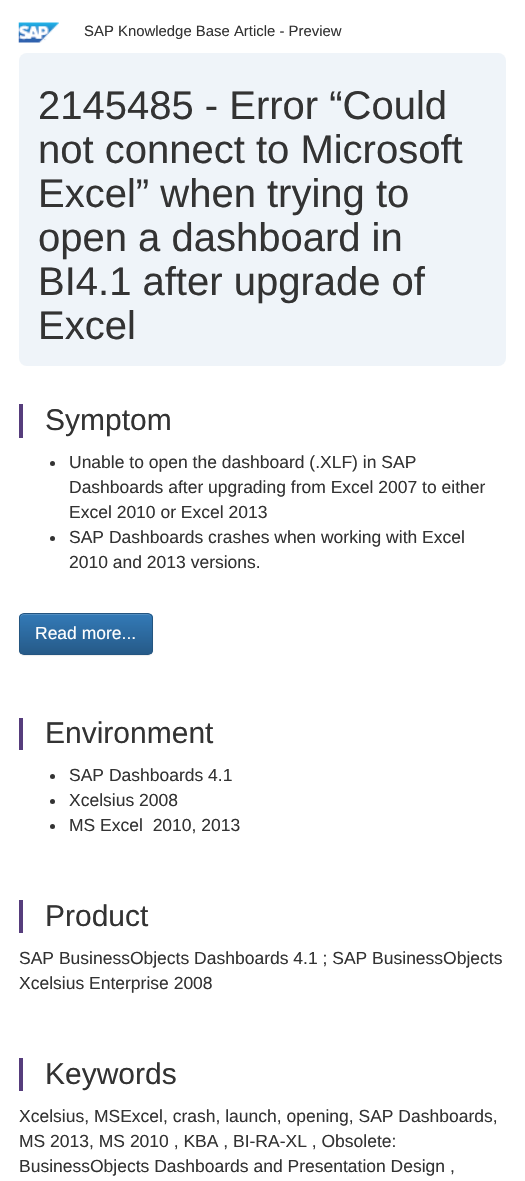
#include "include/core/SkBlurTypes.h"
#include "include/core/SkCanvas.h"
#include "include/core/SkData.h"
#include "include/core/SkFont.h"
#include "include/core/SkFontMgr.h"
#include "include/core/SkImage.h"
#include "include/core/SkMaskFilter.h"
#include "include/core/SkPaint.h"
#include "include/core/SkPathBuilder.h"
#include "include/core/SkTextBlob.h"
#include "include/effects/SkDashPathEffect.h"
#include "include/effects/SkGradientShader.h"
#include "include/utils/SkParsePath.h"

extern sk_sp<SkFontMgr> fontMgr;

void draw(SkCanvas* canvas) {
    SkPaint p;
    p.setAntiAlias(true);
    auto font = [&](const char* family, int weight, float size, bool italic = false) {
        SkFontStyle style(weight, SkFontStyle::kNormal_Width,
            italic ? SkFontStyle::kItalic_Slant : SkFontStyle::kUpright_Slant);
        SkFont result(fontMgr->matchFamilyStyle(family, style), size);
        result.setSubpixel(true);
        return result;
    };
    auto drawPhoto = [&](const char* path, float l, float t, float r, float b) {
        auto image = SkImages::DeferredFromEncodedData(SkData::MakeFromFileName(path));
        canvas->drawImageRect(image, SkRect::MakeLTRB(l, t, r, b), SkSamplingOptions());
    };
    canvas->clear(0xFFFFFFFF);
    drawPhoto("media/1.png", 18, 22, 59, 43);
    auto font1 = font("Liberation Sans", 400, 14.9f);
    p.setColor(0xFF333333);
    canvas->drawString("SAP Knowledge Base Article - Preview", 84, 36, font1, p);
    p.setColor(0xFFEFF4F9);
    canvas->drawRoundRect(SkRect::MakeLTRB(19, 53, 506, 366), 8, 8, p);
    auto font2 = font("Liberation Sans", 400, 40);
    p.setColor(0xFF333333);
    {
        const struct { const char* s; float x, y; } items[] = {
            {"2145485 - Error “Could", 38, 119},
            {"not connect to Microsoft", 38, 163},
            {"Excel” when trying to", 38, 207},
            {"open a dashboard in", 38, 251},
            {"BI4.1 after upgrade of", 38, 295},
            {"Excel", 38, 339},
        };
        for (auto [s, x, y] : items) {
            canvas->drawString(s, x, y, font2, p);
        }
    }
    p.setColor(0xFF563D7C);
    canvas->drawRect(SkRect::MakeLTRB(19, 404, 23, 438), p);
    auto font3 = font("Liberation Sans", 400, 30);
    p.setColor(0xFF333333);
    canvas->drawString("Symptom", 45, 430, font3, p);
    canvas->drawCircle(52.5f, 463.5f, 2.5f, p);
    auto font4 = font("Liberation Sans", 400, 17.5f);
    {
        const struct { const char* s; float x, y; } items[] = {
            {"Unable to open the dashboard (.XLF) in SAP", 69, 468},
            {"Dashboards after upgrading from Excel 2007 to either", 69, 493},
            {"Excel 2010 or Excel 2013", 69, 518},
        };
        for (auto [s, x, y] : items) {
            canvas->drawString(s, x, y, font4, p);
        }
    }
    canvas->drawCircle(52.5f, 538.5f, 2.5f, p);
    canvas->drawString("SAP Dashboards crashes when working with Excel", 69, 543, font4, p);
    canvas->drawString("2010 and 2013 versions.", 69, 568, font4, p);
    p.setColor(0x12000000);
    p.setMaskFilter(SkMaskFilter::MakeBlur(kNormal_SkBlurStyle, 0.5f));
    canvas->drawRoundRect(SkRect::MakeLTRB(19, 614, 153, 656), 5, 5, p);
    p.setMaskFilter(nullptr);
    canvas->save();
    canvas->clipPath(SkPathBuilder().moveTo(24, 613).lineTo(148, 613).cubicTo(151, 613, 153, 615, 153, 618).lineTo(153, 650).cubicTo(153, 653, 151, 655, 148, 655).lineTo(24, 655).cubicTo(21, 655, 19, 653, 19, 650).lineTo(19, 618).cubicTo(19, 615, 21, 613, 24, 613).close().detach(), true);
    {
        const SkColor colors[] = {0xFF337AB7, 0xFF265A88};
        const float stops[] = {0, 1};
        const SkPoint ends[] = {{86, 614}, {86, 654}};
        p.setShader(SkGradientShader::MakeLinear(ends, colors, stops, 2, SkTileMode::kClamp));
        p.setAlpha(255);
    }
    canvas->drawRect(SkRect::MakeLTRB(19, 614, 153, 654), p);
    canvas->restore();
    p.setShader(nullptr);
    p.setColor(0xFF528EC1);
    canvas->drawPath(SkPathBuilder().moveTo(24, 615).lineTo(148, 615).cubicTo(150, 615, 151, 617, 151, 619).lineTo(151, 618).cubicTo(151, 616, 149, 614, 147, 614).lineTo(24, 614).cubicTo(22, 614, 20, 616, 20, 618).lineTo(20, 619).cubicTo(20, 617, 22, 615, 24, 615).close().detach(), p);
    p.setStyle(SkPaint::kStroke_Style);
    p.setStrokeWidth(1);
    p.setColor(0xFF245580);
    canvas->drawRoundRect(SkRect::MakeLTRB(19.5f, 613.5f, 152.5f, 654.5f), 4.5f, 4.5f, p);
    p.setStyle(SkPaint::kFill_Style);
    p.setColor(0xFFFFFFFF);
    canvas->drawString("Read more...", 35, 639, font4, p);
    p.setColor(0xFF563D7C);
    canvas->drawRect(SkRect::MakeLTRB(19, 718, 23, 750), p);
    p.setColor(0xFF333333);
    canvas->drawString("Environment", 45, 743, font3, p);
    canvas->drawCircle(52.5f, 776.5f, 2.5f, p);
    canvas->drawString("SAP Dashboards 4.1", 69, 781, font4, p);
    canvas->drawCircle(52.5f, 801.5f, 2.5f, p);
    canvas->drawString("Xcelsius 2008", 69, 806, font4, p);
    canvas->drawCircle(52.5f, 826.5f, 2.5f, p);
    canvas->drawString("MS Excel  2010, 2013", 69, 831, font4, p);
    p.setColor(0xFF563D7C);
    canvas->drawRect(SkRect::MakeLTRB(19, 900, 23, 933), p);
    p.setColor(0xFF333333);
    canvas->drawString("Product", 45, 926, font3, p);
    canvas->drawString("SAP BusinessObjects Dashboards 4.1 ; SAP BusinessObjects", 19, 964, font4, p);
    canvas->drawString("Xcelsius Enterprise 2008", 19, 989, font4, p);
    p.setColor(0xFF563D7C);
    canvas->drawRect(SkRect::MakeLTRB(19, 1058, 23, 1091), p);
    p.setColor(0xFF333333);
    canvas->drawString("Keywords", 45, 1084, font3, p);
    {
        const struct { const char* s; float x, y; } items[] = {
            {"Xcelsius, MSExcel, crash, launch, opening, SAP Dashboards,", 19, 1122},
            {"MS 2013, MS 2010 , KBA , BI-RA-XL , Obsolete:", 19, 1147},
            {"BusinessObjects Dashboards and Presentation Design ,", 19, 1172},
        };
        for (auto [s, x, y] : items) {
            canvas->drawString(s, x, y, font4, p);
        }
    }
}
